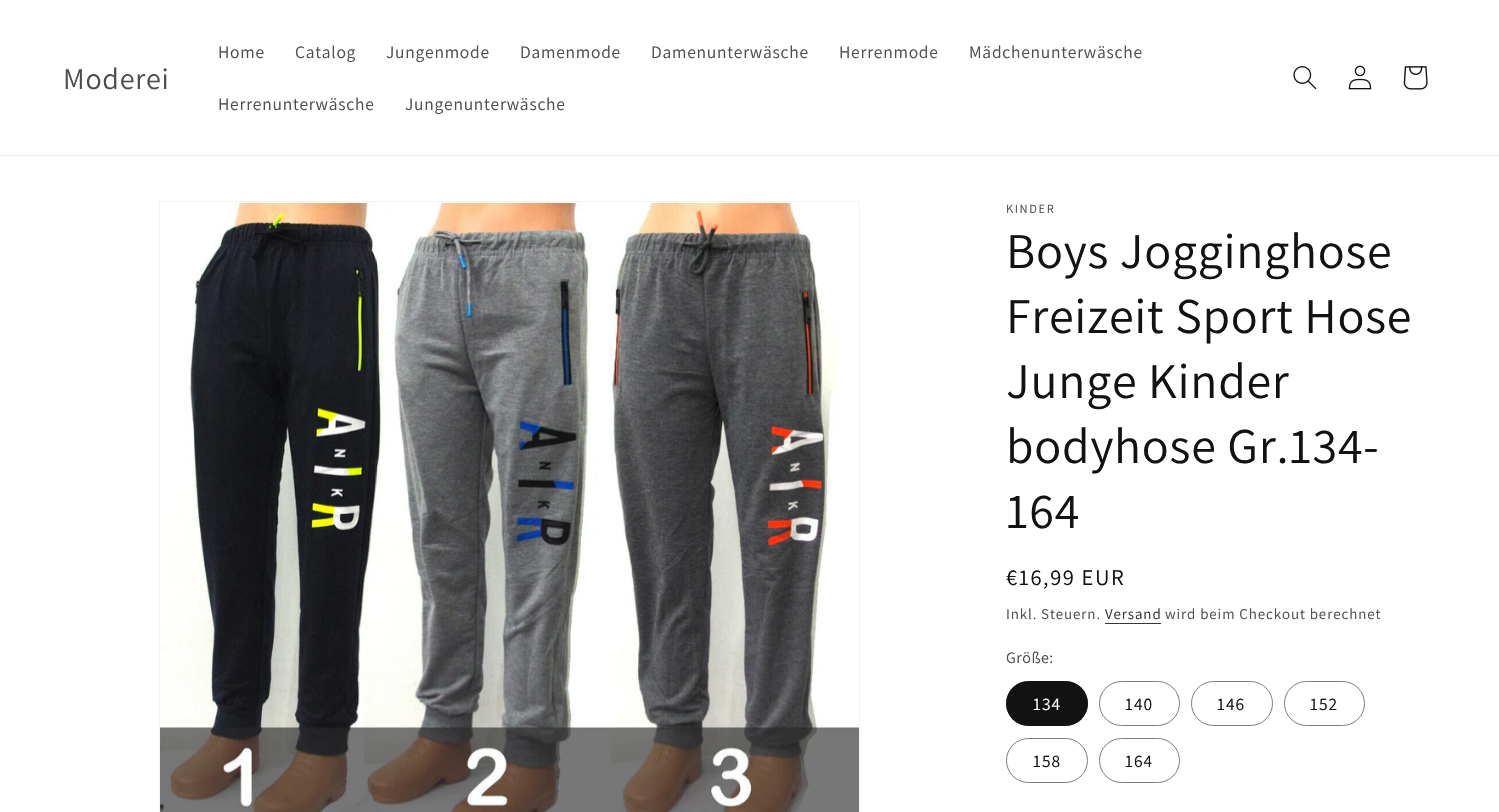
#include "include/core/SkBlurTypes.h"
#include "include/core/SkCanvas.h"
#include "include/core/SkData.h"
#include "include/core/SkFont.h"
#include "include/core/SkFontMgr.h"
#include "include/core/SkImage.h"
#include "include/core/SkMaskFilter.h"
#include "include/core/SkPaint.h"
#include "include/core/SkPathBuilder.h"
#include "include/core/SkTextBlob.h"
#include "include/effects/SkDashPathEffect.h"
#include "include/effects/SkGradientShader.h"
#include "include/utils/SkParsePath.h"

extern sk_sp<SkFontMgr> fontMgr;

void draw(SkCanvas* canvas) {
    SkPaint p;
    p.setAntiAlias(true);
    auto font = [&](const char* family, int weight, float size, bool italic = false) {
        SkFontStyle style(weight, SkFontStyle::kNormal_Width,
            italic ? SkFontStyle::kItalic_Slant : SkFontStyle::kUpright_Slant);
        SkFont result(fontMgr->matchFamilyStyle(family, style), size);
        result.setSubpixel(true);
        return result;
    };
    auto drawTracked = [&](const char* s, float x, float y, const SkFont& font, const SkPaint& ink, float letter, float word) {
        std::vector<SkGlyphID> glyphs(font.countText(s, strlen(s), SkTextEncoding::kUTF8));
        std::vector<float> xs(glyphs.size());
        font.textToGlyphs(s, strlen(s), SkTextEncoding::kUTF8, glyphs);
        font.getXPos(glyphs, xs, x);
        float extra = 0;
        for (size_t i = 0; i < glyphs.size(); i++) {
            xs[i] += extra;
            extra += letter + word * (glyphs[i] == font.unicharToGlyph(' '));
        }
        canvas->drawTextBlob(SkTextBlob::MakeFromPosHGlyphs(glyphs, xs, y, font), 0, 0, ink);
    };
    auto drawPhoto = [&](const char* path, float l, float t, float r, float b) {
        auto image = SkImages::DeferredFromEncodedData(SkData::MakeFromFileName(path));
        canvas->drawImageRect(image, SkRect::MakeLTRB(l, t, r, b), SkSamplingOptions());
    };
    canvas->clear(0xFFFFFFFF);
    p.setColor(0xFFECECEC);
    canvas->drawRect(SkRect::MakeLTRB(0, 155, 1499, 156), p);
    auto font1 = font("Assistant", 400, 30);
    p.setColor(0xFF4D4D4D);
    drawTracked("Moderei", 63, 89, font1, p, 0.75f, 0);
    auto font2 = font("Assistant", 400, 17.5f);
    {
        const struct { const char* s; float x, y; } items[] = {
            {"Home", 218, 58},
            {"Catalog", 295, 58},
            {"Jungenmode", 386, 58},
            {"Damenmode", 520, 58},
            {"Damenunterwäsche", 651, 58},
            {"Herrenmode", 839, 58},
            {"Mädchenunterwäsche", 969, 58},
            {"Herrenunterwäsche", 218, 110},
            {"Jungenunterwäsche", 405, 110},
        };
        for (auto [s, x, y] : items) {
            drawTracked(s, x, y, font2, p, 0.75f, 0);
        }
    }
    drawPhoto("media/1.png", 1293, 66, 1317, 90);
    drawPhoto("media/2.png", 1348, 65, 1372, 90);
    drawPhoto("media/3.png", 1403, 66, 1428, 90);
    p.setStyle(SkPaint::kStroke_Style);
    p.setStrokeWidth(1);
    p.setColor(0xFFF3F3F3);
    canvas->drawRect(SkRect::MakeLTRB(159.5f, 201.5f, 859.5f, 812.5f), p);
    drawPhoto("media/4.png", 160, 203, 859, 812);
    auto font3 = font("Assistant", 400, 12.5f);
    p.setStyle(SkPaint::kFill_Style);
    p.setColor(0xFF4D4D4D);
    drawTracked("KINDER", 1006, 213, font3, p, 1.6f, 0);
    auto font4 = font("Assistant", 400, 50);
    p.setColor(0xFF121212);
    {
        const struct { const char* s; float x, y; } items[] = {
            {"Boys Jogginghose", 1006, 268},
            {"Freizeit Sport Hose", 1006, 333},
            {"Junge Kinder", 1006, 398},
            {"bodyhose Gr.134-", 1006, 463},
            {"164", 1006, 528},
        };
        for (auto [s, x, y] : items) {
            drawTracked(s, x, y, font4, p, 0.75f, 0);
        }
    }
    auto font5 = font("Assistant", 400, 22.5f);
    drawTracked("€16,99 EUR", 1006, 585, font5, p, 1.6f, 0);
    auto font6 = font("Assistant", 400, 15);
    p.setColor(0xFF4D4D4D);
    drawTracked("Inkl. Steuern.", 1006, 619, font6, p, 0.9f, 0);
    p.setColor(0xFF363636);
    drawTracked("Versand", 1105, 619, font6, p, 0.9f, 0);
    canvas->drawRect(SkRect::MakeLTRB(1105, 623, 1161, 624), p);
    p.setColor(0xFF4D4D4D);
    drawTracked("wird beim Checkout berechnet", 1165, 619, font6, p, 0.9f, 0);
    auto font7 = font("Assistant", 400, 16);
    drawTracked("Größe:", 1006, 663, font7, p, 0.5f, 0);
    p.setColor(0xFF121212);
    canvas->drawRoundRect(SkRect::MakeLTRB(1006, 681, 1088, 726), 22.5f, 22.5f, p);
    p.setStyle(SkPaint::kStroke_Style);
    p.setColor(0x8C121212);
    canvas->drawRoundRect(SkRect::MakeLTRB(1006.5f, 681.5f, 1087.5f, 725.5f), 22, 22, p);
    p.setStyle(SkPaint::kFill_Style);
    p.setColor(0xFFFFFFFF);
    drawTracked("134", 1033, 710, font2, p, 1, 0);
    p.setStyle(SkPaint::kStroke_Style);
    p.setColor(0xFF7D7D7D);
    canvas->drawRoundRect(SkRect::MakeLTRB(1099.5f, 681.5f, 1179.5f, 725.5f), 22, 22, p);
    p.setStyle(SkPaint::kFill_Style);
    p.setColor(0xFF121212);
    drawTracked("140", 1125, 710, font2, p, 1, 0);
    p.setStyle(SkPaint::kStroke_Style);
    p.setColor(0xFF7D7D7D);
    canvas->drawRoundRect(SkRect::MakeLTRB(1191.5f, 681.5f, 1272.5f, 725.5f), 22, 22, p);
    p.setStyle(SkPaint::kFill_Style);
    p.setColor(0xFF121212);
    drawTracked("146", 1217, 710, font2, p, 1, 0);
    p.setStyle(SkPaint::kStroke_Style);
    p.setColor(0xFF7D7D7D);
    canvas->drawRoundRect(SkRect::MakeLTRB(1284.5f, 681.5f, 1364.5f, 725.5f), 22, 22, p);
    p.setStyle(SkPaint::kFill_Style);
    p.setColor(0xFF121212);
    drawTracked("152", 1310, 710, font2, p, 1, 0);
    p.setStyle(SkPaint::kStroke_Style);
    p.setColor(0xFF7D7D7D);
    canvas->drawRoundRect(SkRect::MakeLTRB(1006.5f, 738.5f, 1087.5f, 782.5f), 22, 22, p);
    p.setStyle(SkPaint::kFill_Style);
    p.setColor(0xFF121212);
    drawTracked("158", 1033, 767, font2, p, 1, 0);
    p.setStyle(SkPaint::kStroke_Style);
    p.setColor(0xFF7D7D7D);
    canvas->drawRoundRect(SkRect::MakeLTRB(1099.5f, 738.5f, 1179.5f, 782.5f), 22, 22, p);
    p.setStyle(SkPaint::kFill_Style);
    p.setColor(0xFF121212);
    drawTracked("164", 1125, 767, font2, p, 1, 0);
}
